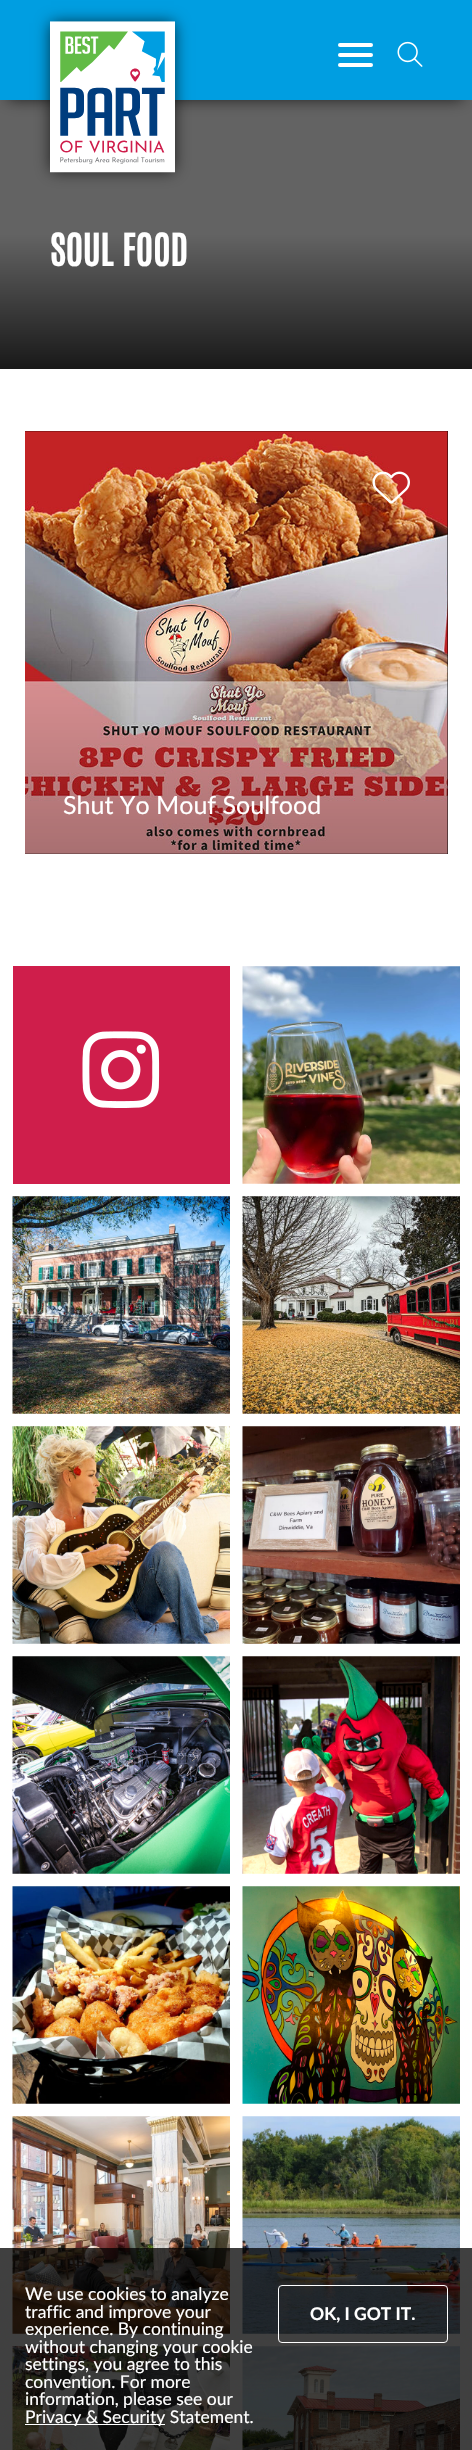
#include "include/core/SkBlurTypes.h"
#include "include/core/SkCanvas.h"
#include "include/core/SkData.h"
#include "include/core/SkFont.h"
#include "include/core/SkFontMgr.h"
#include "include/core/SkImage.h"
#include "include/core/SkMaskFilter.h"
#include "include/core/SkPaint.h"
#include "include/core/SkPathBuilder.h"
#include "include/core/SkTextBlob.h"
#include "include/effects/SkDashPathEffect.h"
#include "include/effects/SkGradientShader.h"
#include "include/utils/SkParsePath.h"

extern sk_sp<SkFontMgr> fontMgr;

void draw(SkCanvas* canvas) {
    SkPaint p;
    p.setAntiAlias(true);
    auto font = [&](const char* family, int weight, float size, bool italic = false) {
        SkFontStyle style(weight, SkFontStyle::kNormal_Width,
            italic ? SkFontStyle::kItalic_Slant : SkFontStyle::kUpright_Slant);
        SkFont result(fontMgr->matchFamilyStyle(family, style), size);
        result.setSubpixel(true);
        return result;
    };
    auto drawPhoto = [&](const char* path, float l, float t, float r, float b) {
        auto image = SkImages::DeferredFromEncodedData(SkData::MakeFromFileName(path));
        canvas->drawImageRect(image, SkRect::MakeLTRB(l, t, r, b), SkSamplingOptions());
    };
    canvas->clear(0xFFFFFFFF);
    {
        const SkColor colors[] = {0xFF636363, 0xFF191919};
        const float stops[] = {0.5f, 1};
        const SkPoint ends[] = {{236, 100}, {236, 369}};
        p.setShader(SkGradientShader::MakeLinear(ends, colors, stops, 2, SkTileMode::kClamp));
        p.setAlpha(255);
    }
    canvas->drawRect(SkRect::MakeLTRB(0, 100, 472, 369), p);
    p.setShader(nullptr);
    p.setColor(0xBF000000);
    p.setMaskFilter(SkMaskFilter::MakeBlur(kNormal_SkBlurStyle, 7.5f));
    canvas->drawRect(SkRect::MakeLTRB(8, 16, 463, 99), p);
    p.setMaskFilter(nullptr);
    p.setColor(0xFF009EE1);
    canvas->drawRect(SkRect::MakeLTRB(0, 0, 472, 100), p);
    p.setColor(0xBF000000);
    p.setMaskFilter(SkMaskFilter::MakeBlur(kNormal_SkBlurStyle, 7.5f));
    canvas->drawRect(SkRect::MakeLTRB(51, 23, 174, 171), p);
    p.setMaskFilter(nullptr);
    drawPhoto("media/1.png", 50, 21, 175, 173);
    p.setColor(0xFFFFFFFF);
    canvas->drawRoundRect(SkRect::MakeLTRB(338, 43, 373, 47), 2, 2, p);
    canvas->drawRoundRect(SkRect::MakeLTRB(338, 53, 373, 57), 2, 2, p);
    canvas->drawRoundRect(SkRect::MakeLTRB(338, 63, 373, 67), 2, 2, p);
    drawPhoto("media/2.png", 397, 41, 423, 67);
    auto font1 = font("Antonio", 700, 37.5f);
    canvas->drawString("SOUL FOOD", 50, 266, font1, p);
    p.setColor(0xFF000000);
    canvas->drawRect(SkRect::MakeLTRB(25, 431, 448, 854), p);
    drawPhoto("media/4.png", 25, 431, 448, 854);
    drawPhoto("media/3.png", 372, 471, 410, 504);
    {
        const SkColor colors[] = {0x00000000, 0x40000000};
        const float stops[] = {0.5f, 1};
        const SkPoint ends[] = {{236, 431}, {236, 854}};
        p.setShader(SkGradientShader::MakeLinear(ends, colors, stops, 2, SkTileMode::kClamp));
        p.setAlpha(255);
    }
    canvas->drawRect(SkRect::MakeLTRB(25, 661, 448, 854), p);
    auto font2 = font("Lato", 400, 25);
    p.setShader(nullptr);
    p.setColor(0xFFFFFFFF);
    canvas->drawString("Shut Yo Mouf Soulfood", 63, 814, font2, p);
    p.setColor(0xFFCF1E4B);
    canvas->drawRect(SkRect::MakeLTRB(13, 966, 230, 1184), p);
    drawPhoto("media/5.png", 82, 1031, 160, 1108);
    drawPhoto("media/6.png", 242, 966, 460, 1184);
    drawPhoto("media/7.png", 12, 1196, 230, 1414);
    drawPhoto("media/8.png", 242, 1196, 460, 1414);
    drawPhoto("media/9.png", 12, 1426, 230, 1644);
    drawPhoto("media/10.png", 242, 1426, 460, 1644);
    drawPhoto("media/11.png", 12, 1656, 230, 1874);
    drawPhoto("media/12.png", 242, 1656, 460, 1874);
    drawPhoto("media/13.png", 12, 1886, 230, 2104);
    drawPhoto("media/14.png", 242, 1886, 460, 2104);
    drawPhoto("media/15.png", 12, 2116, 230, 2334);
    drawPhoto("media/16.png", 242, 2116, 460, 2334);
    drawPhoto("media/17.png", 12, 2346, 230, 2450);
    drawPhoto("media/18.png", 242, 2346, 460, 2450);
    p.setColor(0xBF000000);
    canvas->drawRect(SkRect::MakeLTRB(0, 2248, 472, 2450), p);
    auto font3 = font("Lato", 400, 17.5f);
    p.setColor(0xFFFFFFFF);
    {
        const struct { const char* s; float x, y; } items[] = {
            {"We use cookies to analyze", 25, 2300},
            {"traffic and improve your", 25, 2318},
            {"experience. By continuing", 25, 2335},
            {"without changing your cookie", 25, 2353},
            {"settings, you agree to this", 25, 2370},
            {"convention. For more", 25, 2388},
            {"information, please see our", 25, 2405},
        };
        for (auto [s, x, y] : items) {
            canvas->drawString(s, x, y, font3, p);
        }
    }
    canvas->drawRect(SkRect::MakeLTRB(25, 2424, 165, 2425), p);
    canvas->drawString("Privacy & Security Statement.", 25, 2423, font3, p);
    p.setStyle(SkPaint::kStroke_Style);
    p.setStrokeWidth(1);
    canvas->drawRoundRect(SkRect::MakeLTRB(278.5f, 2285.5f, 447.5f, 2342.5f), 3.5f, 3.5f, p);
    auto font4 = font("Lato", 700, 17.5f);
    p.setStyle(SkPaint::kFill_Style);
    canvas->drawString("OK, I GOT IT.", 310, 2320, font4, p);
}
